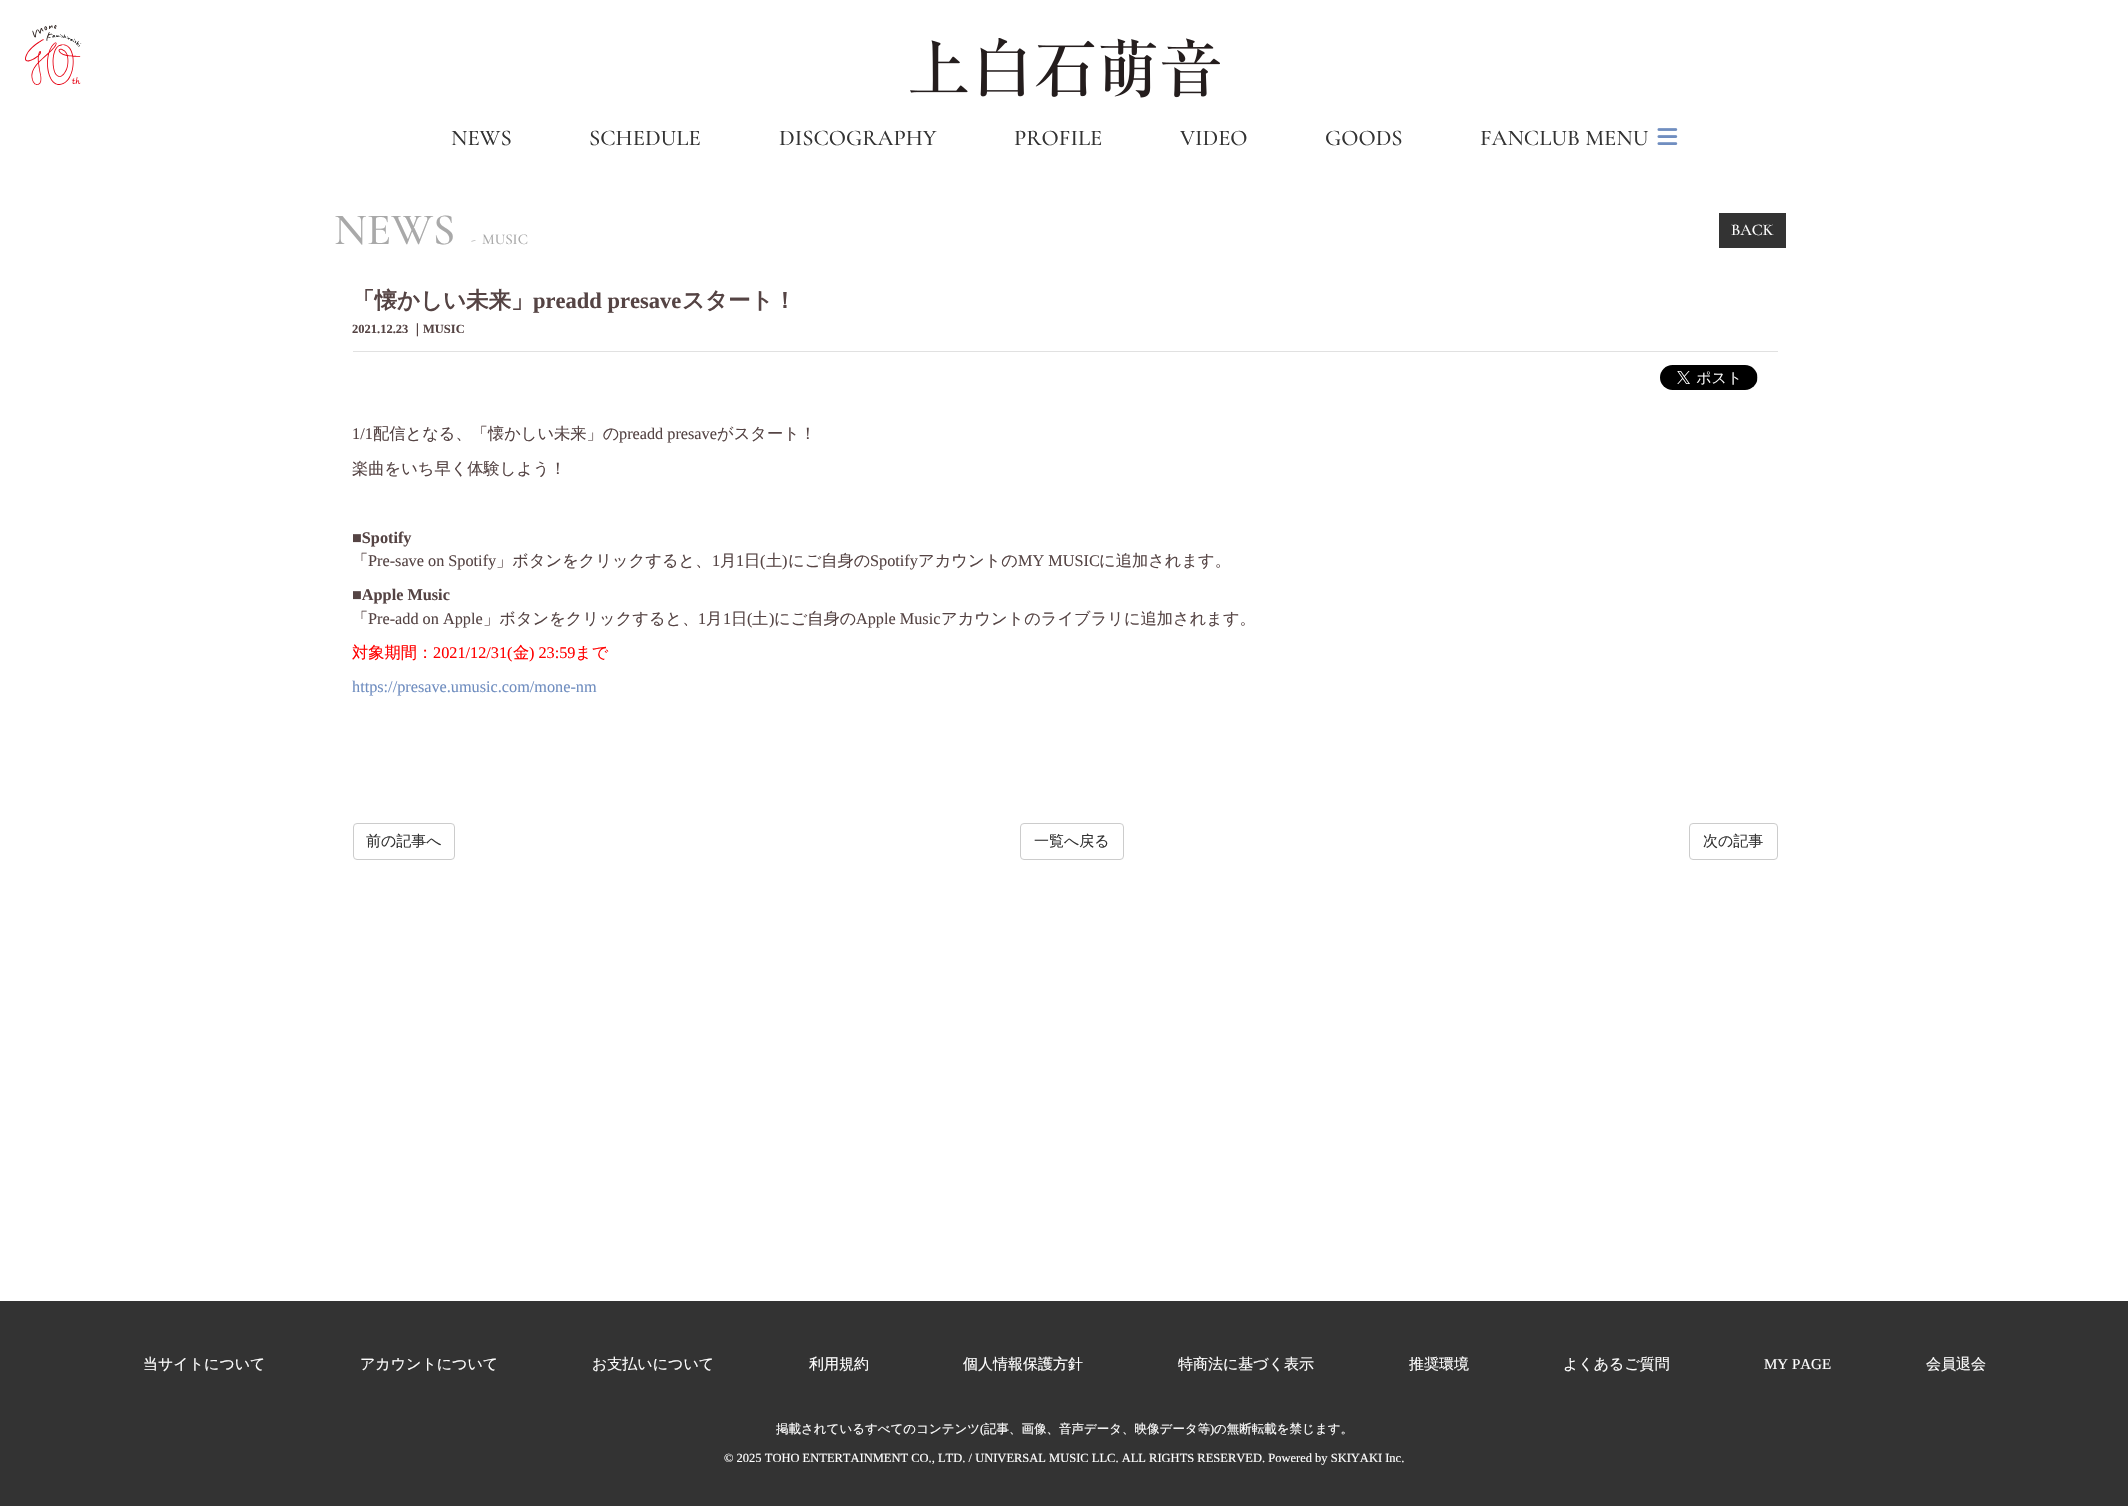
#include "include/core/SkBlurTypes.h"
#include "include/core/SkCanvas.h"
#include "include/core/SkData.h"
#include "include/core/SkFont.h"
#include "include/core/SkFontMgr.h"
#include "include/core/SkImage.h"
#include "include/core/SkMaskFilter.h"
#include "include/core/SkPaint.h"
#include "include/core/SkPathBuilder.h"
#include "include/core/SkTextBlob.h"
#include "include/effects/SkDashPathEffect.h"
#include "include/effects/SkGradientShader.h"
#include "include/utils/SkParsePath.h"

extern sk_sp<SkFontMgr> fontMgr;

void draw(SkCanvas* canvas) {
    SkPaint p;
    p.setAntiAlias(true);
    auto font = [&](const char* family, int weight, float size, bool italic = false) {
        SkFontStyle style(weight, SkFontStyle::kNormal_Width,
            italic ? SkFontStyle::kItalic_Slant : SkFontStyle::kUpright_Slant);
        SkFont result(fontMgr->matchFamilyStyle(family, style), size);
        result.setSubpixel(true);
        return result;
    };
    auto drawPhoto = [&](const char* path, float l, float t, float r, float b) {
        auto image = SkImages::DeferredFromEncodedData(SkData::MakeFromFileName(path));
        canvas->drawImageRect(image, SkRect::MakeLTRB(l, t, r, b), SkSamplingOptions());
    };
    canvas->clear(0xFFFFFFFF);
    drawPhoto("media/1.png", 25, 25, 82, 85);
    drawPhoto("media/2.png", 910, 38, 1220, 98);
    auto font1 = font("Cormorant Garamond", 500, 22.5f);
    p.setColor(0xFF333333);
    {
        const struct { const char* s; float x, y; } items[] = {
            {"NEWS", 451, 145},
            {"SCHEDULE", 589, 145},
            {"DISCOGRAPHY", 779, 145},
            {"PROFILE", 1014, 145},
            {"VIDEO", 1180, 145},
            {"GOODS", 1325, 145},
            {"FANCLUB MENU", 1480, 145},
        };
        for (auto [s, x, y] : items) {
            canvas->drawString(s, x, y, font1, p);
        }
    }
    drawPhoto("media/3.png", 1657, 128, 1678, 145);
    auto font2 = font("Cormorant Garamond", 500, 45);
    p.setColor(0xFFA9A9A9);
    canvas->drawString("NEWS", 334, 244, font2, p);
    auto font3 = font("Cormorant Garamond", 500, 15);
    canvas->drawString("-", 471, 244, font3, p);
    canvas->drawString("MUSIC", 482, 244, font3, p);
    p.setColor(0xFF333333);
    canvas->drawRect(SkRect::MakeLTRB(1719, 213, 1786, 248), p);
    auto font4 = font("Cormorant Garamond", 500, 16.25f);
    p.setColor(0xFFFFFFFF);
    canvas->drawString("BACK", 1731, 235, font4, p);
    auto font5 = font("WenQuanYi Zen Hei", 700, 22.5f);
    p.setColor(0xFF554444);
    canvas->drawString("「懐かしい未来」", 352, 308, font5, p);
    auto font6 = font("Liberation Serif", 700, 22.5f);
    canvas->drawString("preadd presave", 533, 308, font6, p);
    canvas->drawString("スタート！", 682, 308, font5, p);
    auto font7 = font("Liberation Serif", 700, 12.5f);
    canvas->drawString("2021.12.23", 352, 333, font7, p);
    auto font8 = font("WenQuanYi Zen Hei", 700, 12.5f);
    canvas->drawString("｜", 411, 333, font8, p);
    canvas->drawString("MUSIC", 423, 333, font7, p);
    p.setColor(0xFFE1E1E1);
    canvas->drawRect(SkRect::MakeLTRB(353, 351, 1778, 352), p);
    drawPhoto("media/4.png", 1660, 365, 1758, 390);
    auto font9 = font("Liberation Serif", 400, 16.25f);
    p.setColor(0xFF554444);
    canvas->drawString("1/1", 352, 439, font9, p);
    auto font10 = font("WenQuanYi Zen Hei", 500, 16.25f);
    canvas->drawString("配信となる、「懐かしい未来」の", 373, 439, font10, p);
    canvas->drawString("preadd presave", 619, 439, font9, p);
    canvas->drawString("がスタート！", 717, 439, font10, p);
    canvas->drawString("楽曲をいち早く体験しよう！", 352, 474, font10, p);
    auto font11 = font("Liberation Serif", 700, 16.25f);
    canvas->drawString("■Spotify", 352, 543, font11, p);
    canvas->drawString("「", 352, 566, font10, p);
    canvas->drawString("Pre-save on Spotify", 368, 566, font9, p);
    canvas->drawString("」ボタンをクリックすると、", 496, 566, font10, p);
    canvas->drawString("1", 712, 566, font9, p);
    canvas->drawString("月", 720, 566, font10, p);
    canvas->drawString("1", 736, 566, font9, p);
    canvas->drawString("日", 744, 566, font10, p);
    canvas->drawString("(", 760, 566, font9, p);
    canvas->drawString("土", 766, 566, font10, p);
    canvas->drawString(")", 782, 566, font9, p);
    canvas->drawString("にご自身の", 788, 566, font10, p);
    canvas->drawString("Spotify", 870, 566, font9, p);
    canvas->drawString("アカウントの", 918, 566, font10, p);
    canvas->drawString("MY MUSIC", 1018, 566, font9, p);
    canvas->drawString("に追加されます。", 1099, 566, font10, p);
    canvas->drawString("■Apple Music", 352, 600, font11, p);
    canvas->drawString("「", 352, 624, font10, p);
    canvas->drawString("Pre-add on Apple", 368, 624, font9, p);
    canvas->drawString("」ボタンをクリックすると、", 483, 624, font10, p);
    canvas->drawString("1", 698, 624, font9, p);
    canvas->drawString("月", 706, 624, font10, p);
    canvas->drawString("1", 723, 624, font9, p);
    canvas->drawString("日", 731, 624, font10, p);
    canvas->drawString("(", 747, 624, font9, p);
    canvas->drawString("土", 752, 624, font10, p);
    canvas->drawString(")", 769, 624, font9, p);
    canvas->drawString("にご自身の", 774, 624, font10, p);
    canvas->drawString("Apple Music", 856, 624, font9, p);
    canvas->drawString("アカウントのライブラリに追加されます。", 941, 624, font10, p);
    p.setColor(0xFFFF0000);
    canvas->drawString("対象期間：", 352, 658, font10, p);
    canvas->drawString("2021/12/31(", 433, 658, font9, p);
    canvas->drawString("金", 513, 658, font10, p);
    canvas->drawString(") 23:59", 529, 658, font9, p);
    canvas->drawString("まで", 575, 658, font10, p);
    p.setColor(0xFF708EC0);
    canvas->drawString("https://presave.umusic.com/mone-nm", 352, 692, font9, p);
    p.setStyle(SkPaint::kStroke_Style);
    p.setStrokeWidth(1);
    p.setColor(0xFFCCCCCC);
    canvas->drawRoundRect(SkRect::MakeLTRB(353.5f, 823.5f, 454.5f, 859.5f), 3.5f, 3.5f, p);
    auto font12 = font("WenQuanYi Zen Hei", 500, 15);
    p.setStyle(SkPaint::kFill_Style);
    p.setColor(0xFF333333);
    canvas->drawString("前の記事へ", 366, 846, font12, p);
    p.setStyle(SkPaint::kStroke_Style);
    p.setColor(0xFFCCCCCC);
    canvas->drawRoundRect(SkRect::MakeLTRB(1020.5f, 823.5f, 1123.5f, 859.5f), 3.5f, 3.5f, p);
    p.setStyle(SkPaint::kFill_Style);
    p.setColor(0xFF333333);
    canvas->drawString("一覧へ戻る", 1034, 846, font12, p);
    p.setStyle(SkPaint::kStroke_Style);
    p.setColor(0xFFCCCCCC);
    canvas->drawRoundRect(SkRect::MakeLTRB(1689.5f, 823.5f, 1777.5f, 859.5f), 3.5f, 3.5f, p);
    p.setStyle(SkPaint::kFill_Style);
    p.setColor(0xFF333333);
    canvas->drawString("次の記事", 1703, 846, font12, p);
    canvas->drawRect(SkRect::MakeLTRB(0, 1301, 2128, 1506), p);
    p.setColor(0xFFFFFFFF);
    {
        const struct { const char* s; float x, y; } items[] = {
            {"当サイトについて", 143, 1369},
            {"アカウントについて", 360, 1369},
            {"お支払いについて", 592, 1369},
            {"利用規約", 809, 1369},
            {"個人情報保護方針", 963, 1369},
            {"特商法に基づく表示", 1178, 1369},
            {"推奨環境", 1409, 1369},
            {"よくあるご質問", 1563, 1369},
        };
        for (auto [s, x, y] : items) {
            canvas->drawString(s, x, y, font12, p);
        }
    }
    auto font13 = font("Liberation Serif", 400, 15);
    canvas->drawString("MY PAGE", 1764, 1369, font13, p);
    canvas->drawString("会員退会", 1926, 1369, font12, p);
    auto font14 = font("WenQuanYi Zen Hei", 500, 12.5f);
    canvas->drawString("掲載されているすべてのコンテンツ", 776, 1433, font14, p);
    auto font15 = font("Liberation Serif", 400, 12.5f);
    canvas->drawString("(", 980, 1433, font15, p);
    canvas->drawString("記事、画像、音声データ、映像データ等", 984, 1433, font14, p);
    canvas->drawString(")", 1210, 1433, font15, p);
    canvas->drawString("の無断転載を禁じます。", 1214, 1433, font14, p);
    canvas->drawString("© 2025 TOHO ENTERTAINMENT CO., LTD. / UNIVERSAL MUSIC LLC. ALL RIGHTS RESERVED. Powered by SKIYAKI Inc.", 724, 1462, font15, p);
}
